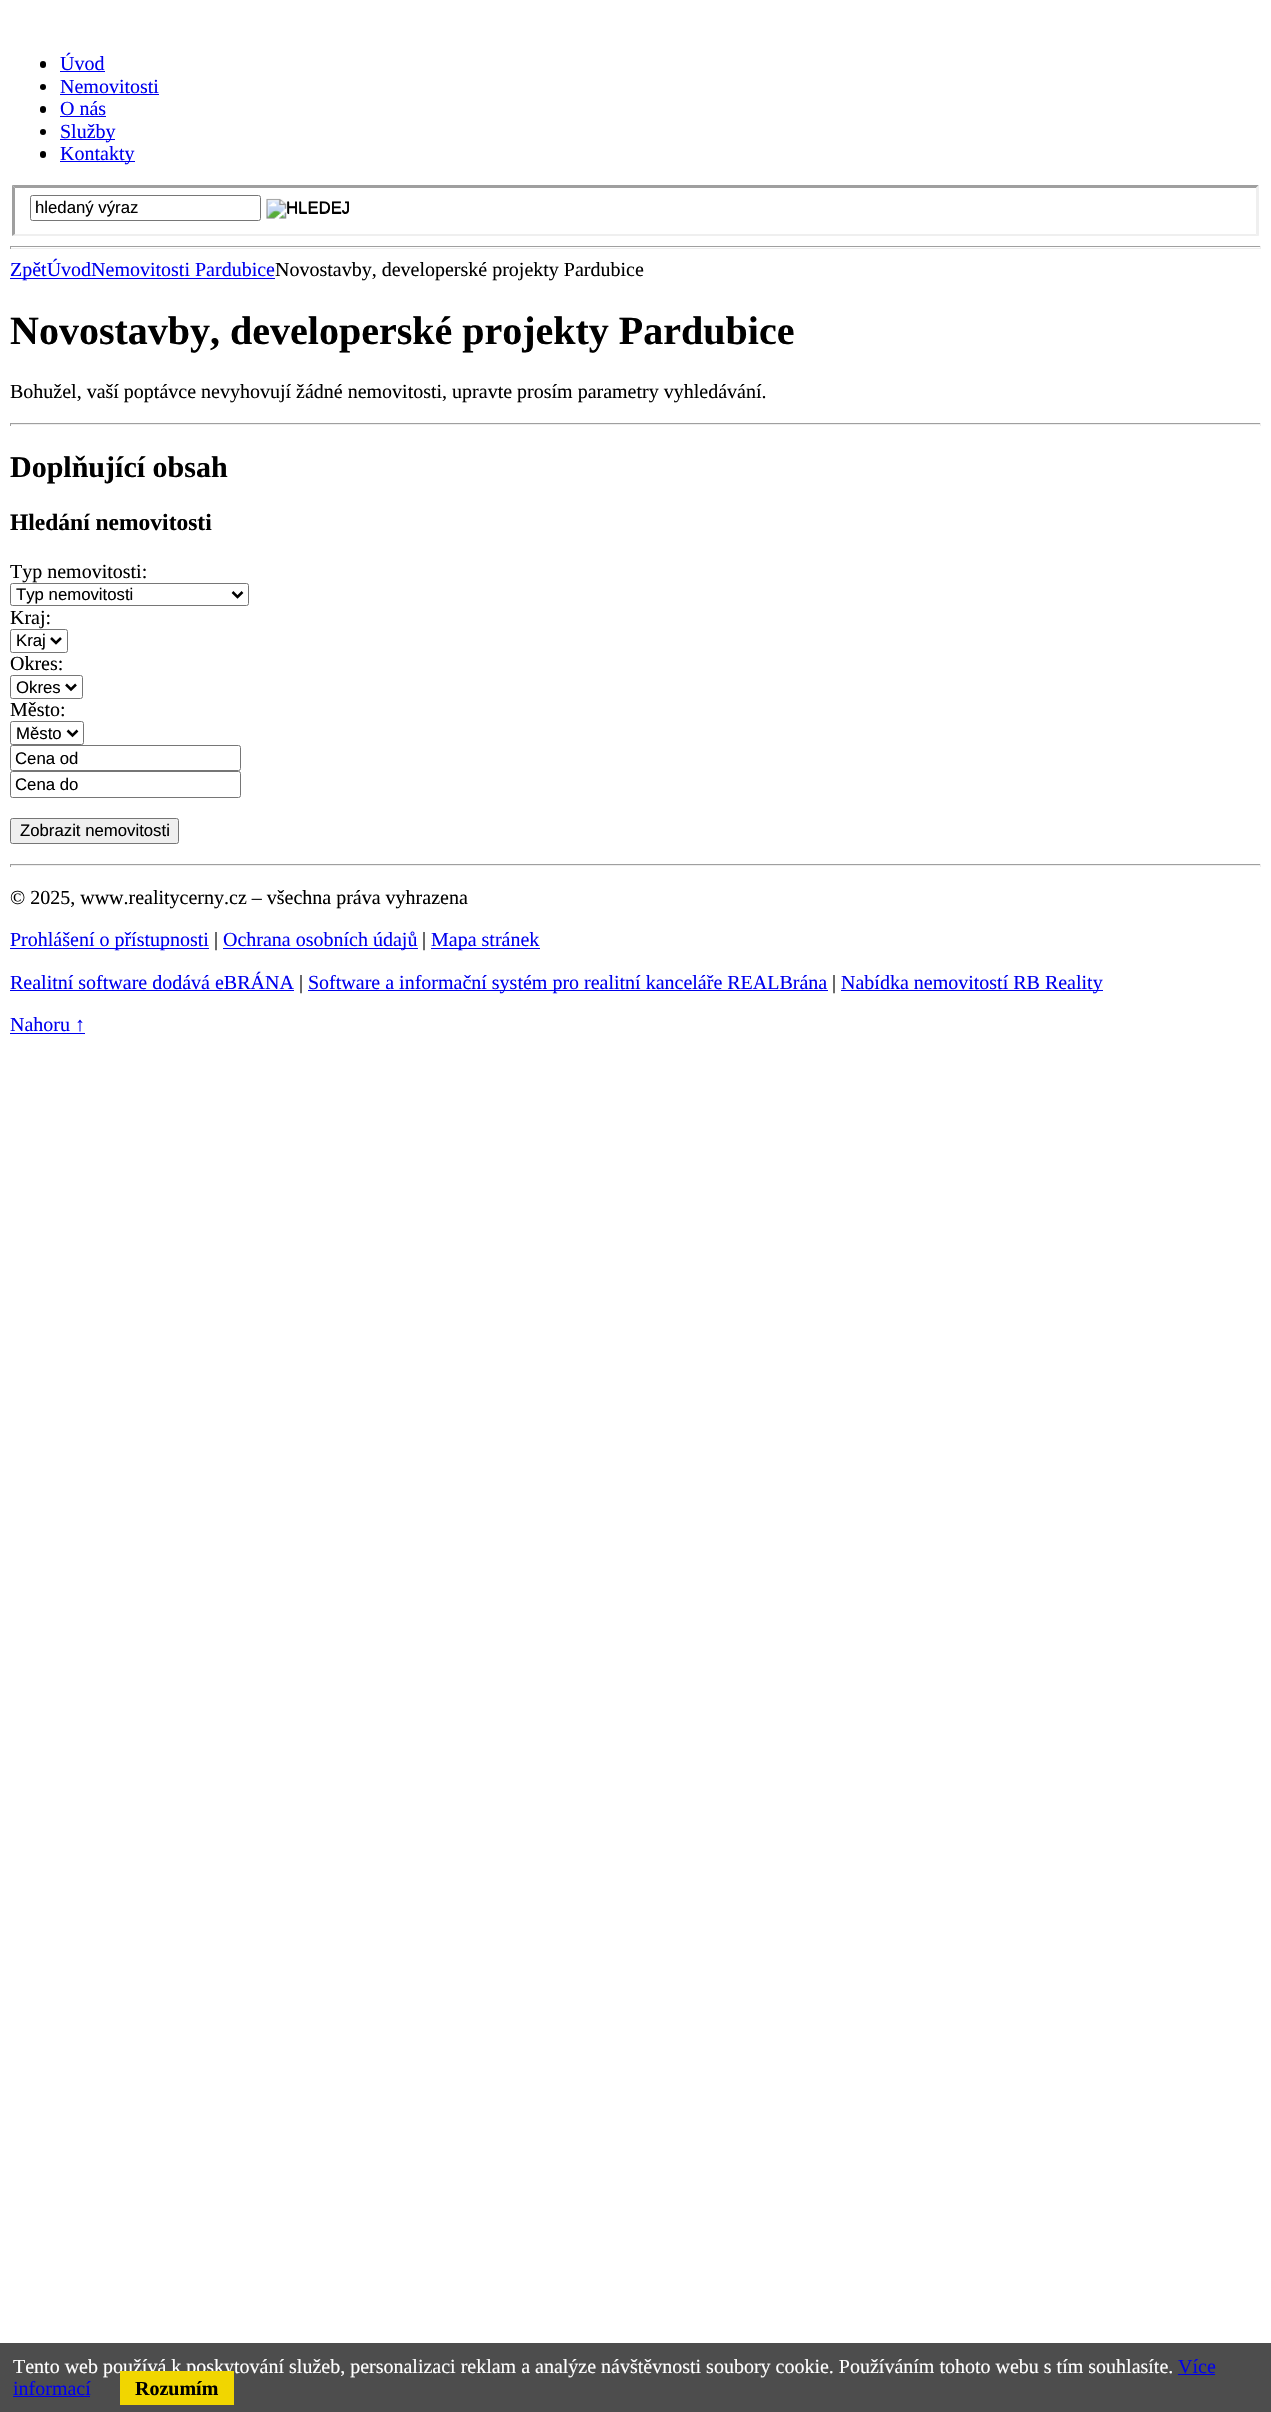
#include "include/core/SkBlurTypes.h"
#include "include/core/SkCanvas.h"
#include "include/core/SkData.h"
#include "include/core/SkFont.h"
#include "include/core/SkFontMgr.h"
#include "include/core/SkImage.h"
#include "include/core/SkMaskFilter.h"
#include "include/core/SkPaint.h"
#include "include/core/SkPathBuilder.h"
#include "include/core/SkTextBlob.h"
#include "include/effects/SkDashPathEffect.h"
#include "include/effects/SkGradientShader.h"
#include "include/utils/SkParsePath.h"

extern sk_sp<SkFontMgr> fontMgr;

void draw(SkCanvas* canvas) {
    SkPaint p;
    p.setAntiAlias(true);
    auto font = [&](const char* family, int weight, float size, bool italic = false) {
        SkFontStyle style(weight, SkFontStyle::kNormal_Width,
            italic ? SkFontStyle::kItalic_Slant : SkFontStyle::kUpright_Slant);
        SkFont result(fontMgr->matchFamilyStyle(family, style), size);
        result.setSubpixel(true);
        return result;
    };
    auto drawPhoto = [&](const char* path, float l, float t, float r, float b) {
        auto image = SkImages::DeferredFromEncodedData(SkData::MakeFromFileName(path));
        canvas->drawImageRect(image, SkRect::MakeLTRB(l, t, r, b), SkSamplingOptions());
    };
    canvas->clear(0xFFFFFFFF);
    p.setColor(0xFF000000);
    canvas->drawRoundRect(SkRect::MakeLTRB(40, 61, 46, 68), 3, 3, p);
    auto font1 = font("Liberation Serif", 400, 20);
    p.setColor(0xFF0000EE);
    canvas->drawString("Úvod", 60, 70, font1, p);
    canvas->drawRect(SkRect::MakeLTRB(60, 71, 105, 72), p);
    p.setColor(0xFF000000);
    canvas->drawCircle(43, 87, 3, p);
    p.setColor(0xFF0000EE);
    canvas->drawString("Nemovitosti", 60, 93, font1, p);
    canvas->drawRect(SkRect::MakeLTRB(60, 94, 159, 95), p);
    p.setColor(0xFF000000);
    canvas->drawRoundRect(SkRect::MakeLTRB(40, 106, 46, 113), 3, 3, p);
    p.setColor(0xFF0000EE);
    canvas->drawString("O nás", 60, 115, font1, p);
    canvas->drawRect(SkRect::MakeLTRB(60, 116, 106, 117), p);
    p.setColor(0xFF000000);
    canvas->drawCircle(43, 132, 3, p);
    p.setColor(0xFF0000EE);
    canvas->drawRect(SkRect::MakeLTRB(60, 139, 115, 140), p);
    canvas->drawString("Služby", 60, 138, font1, p);
    p.setColor(0xFF000000);
    canvas->drawRoundRect(SkRect::MakeLTRB(40, 151, 46, 158), 3, 3, p);
    p.setColor(0xFF0000EE);
    canvas->drawRect(SkRect::MakeLTRB(60, 161, 135, 162), p);
    canvas->drawString("Kontakty", 60, 160, font1, p);
    p.setColor(0xFF9F9F9F);
    canvas->drawPath(SkPathBuilder().moveTo(12, 185).lineTo(1259, 185).lineTo(1256, 188).lineTo(15, 188).close().detach(), p);
    p.setColor(0xFFEFEFEF);
    canvas->drawPath(SkPathBuilder().moveTo(1259, 185).lineTo(1259, 236).lineTo(1256, 234).lineTo(1256, 188).close().detach(), p);
    canvas->drawPath(SkPathBuilder().moveTo(1259, 236).lineTo(12, 236).lineTo(15, 234).lineTo(1256, 234).close().detach(), p);
    p.setColor(0xFF9F9F9F);
    canvas->drawPath(SkPathBuilder().moveTo(12, 236).lineTo(12, 185).lineTo(15, 188).lineTo(15, 234).close().detach(), p);
    p.setStyle(SkPaint::kStroke_Style);
    p.setStrokeWidth(1);
    p.setColor(0xFF767676);
    canvas->drawRoundRect(SkRect::MakeLTRB(30.5f, 195.5f, 260.5f, 220.5f), 2, 2, p);
    auto font2 = font("Liberation Sans", 400, 16.75f);
    p.setStyle(SkPaint::kFill_Style);
    p.setColor(0xFF000000);
    canvas->drawString("hledaný výraz", 35, 213, font2, p);
    drawPhoto("media/1.png", 266, 198, 349, 219);
    canvas->drawString("HLEDEJ", 286, 213, font2, p);
    {
        const struct { float l, t, r, b; SkColor color; } items[] = {
            {10, 246, 1261, 247, 0xFF9F9F9F},
            {1260, 246, 1261, 249, 0xFFEEEEEE},
            {10, 248, 1261, 249, 0xFFEEEEEE},
            {10, 246, 11, 249, 0xFF9F9F9F},
            {10, 278, 46, 279, 0xFF0000EE},
        };
        for (auto [l, t, r, b, color] : items) {
            p.setColor(color);
            canvas->drawRect(SkRect::MakeLTRB(l, t, r, b), p);
        }
    }
    canvas->drawString("ZpětÚvodNemovitosti Pardubice", 10, 276, font1, p);
    p.setColor(0xFF000000);
    canvas->drawString("Novostavby, developerské projekty Pardubice", 275, 276, font1, p);
    p.setColor(0xFF0000EE);
    canvas->drawRect(SkRect::MakeLTRB(46, 278, 275, 279), p);
    auto font3 = font("Liberation Serif", 700, 40);
    p.setColor(0xFF000000);
    canvas->drawString("Novostavby, developerské projekty Pardubice", 10, 344, font3, p);
    canvas->drawString("Bohužel, vaší poptávce nevyhovují žádné nemovitosti, upravte prosím parametry vyhledávání.", 10, 398, font1, p);
    {
        const struct { float l, t, r, b; SkColor color; } items[] = {
            {10, 423, 1261, 424, 0xFF9F9F9F},
            {1260, 423, 1261, 426, 0xFFEEEEEE},
            {10, 424, 1261, 425, 0xFFEEEEEE},
            {10, 423, 11, 426, 0xFF9F9F9F},
        };
        for (auto [l, t, r, b, color] : items) {
            p.setColor(color);
            canvas->drawRect(SkRect::MakeLTRB(l, t, r, b), p);
        }
    }
    auto font4 = font("Liberation Serif", 700, 30);
    p.setColor(0xFF000000);
    canvas->drawString("Doplňující obsah", 10, 477, font4, p);
    auto font5 = font("Liberation Serif", 700, 23.5f);
    canvas->drawString("Hledání nemovitosti", 10, 530, font5, p);
    canvas->drawString("Typ nemovitosti:", 10, 578, font1, p);
    p.setStyle(SkPaint::kStroke_Style);
    p.setColor(0xFF767676);
    canvas->drawRoundRect(SkRect::MakeLTRB(10.5f, 583.5f, 248.5f, 605.5f), 2, 2, p);
    p.setStrokeWidth(2.5f);
    p.setColor(0xFF000000);
    canvas->drawPath(SkPathBuilder().moveTo(232.5f, 592).lineTo(237.5f, 597).lineTo(242.5f, 592).detach(), p);
    p.setStyle(SkPaint::kFill_Style);
    canvas->drawString("Typ nemovitosti", 16, 600, font2, p);
    canvas->drawString("Kraj:", 10, 624, font1, p);
    p.setStyle(SkPaint::kStroke_Style);
    p.setStrokeWidth(1);
    p.setColor(0xFF767676);
    canvas->drawRoundRect(SkRect::MakeLTRB(10.5f, 629.5f, 67.5f, 652.5f), 2, 2, p);
    p.setStrokeWidth(2.5f);
    p.setColor(0xFF000000);
    canvas->drawPath(SkPathBuilder().moveTo(51, 638).lineTo(56, 643).lineTo(61, 638).detach(), p);
    p.setStyle(SkPaint::kFill_Style);
    canvas->drawString("Kraj", 16, 646, font2, p);
    canvas->drawString("Okres:", 10, 670, font1, p);
    p.setStyle(SkPaint::kStroke_Style);
    p.setStrokeWidth(1);
    p.setColor(0xFF767676);
    canvas->drawRoundRect(SkRect::MakeLTRB(10.5f, 675.5f, 82.5f, 698.5f), 2, 2, p);
    p.setStrokeWidth(2.5f);
    p.setColor(0xFF000000);
    canvas->drawPath(SkPathBuilder().moveTo(66, 684.5f).lineTo(71, 689.5f).lineTo(76, 684.5f).detach(), p);
    p.setStyle(SkPaint::kFill_Style);
    canvas->drawString("Okres", 16, 693, font2, p);
    canvas->drawString("Město:", 10, 716, font1, p);
    p.setStyle(SkPaint::kStroke_Style);
    p.setStrokeWidth(1);
    p.setColor(0xFF767676);
    canvas->drawRoundRect(SkRect::MakeLTRB(10.5f, 721.5f, 83.5f, 744.5f), 2, 2, p);
    p.setStrokeWidth(2.5f);
    p.setColor(0xFF000000);
    canvas->drawPath(SkPathBuilder().moveTo(67.5f, 730.5f).lineTo(72.5f, 735.5f).lineTo(77.5f, 730.5f).detach(), p);
    p.setStyle(SkPaint::kFill_Style);
    canvas->drawString("Město", 16, 739, font2, p);
    p.setStyle(SkPaint::kStroke_Style);
    p.setStrokeWidth(1);
    p.setColor(0xFF767676);
    canvas->drawRoundRect(SkRect::MakeLTRB(10.5f, 745.5f, 240.5f, 770.5f), 2, 2, p);
    p.setStyle(SkPaint::kFill_Style);
    p.setColor(0xFF000000);
    canvas->drawString("Cena od", 15, 764, font2, p);
    p.setStyle(SkPaint::kStroke_Style);
    p.setColor(0xFF767676);
    canvas->drawRoundRect(SkRect::MakeLTRB(10.5f, 771.5f, 240.5f, 797.5f), 2, 2, p);
    p.setStyle(SkPaint::kFill_Style);
    p.setColor(0xFF000000);
    canvas->drawString("Cena do", 15, 790, font2, p);
    p.setColor(0xFFEFEFEF);
    canvas->drawRoundRect(SkRect::MakeLTRB(10.5f, 818.5f, 178.5f, 843.5f), 2, 2, p);
    p.setStyle(SkPaint::kStroke_Style);
    p.setColor(0xFF767676);
    canvas->drawRoundRect(SkRect::MakeLTRB(10.5f, 818.5f, 178.5f, 843.5f), 2, 2, p);
    p.setStyle(SkPaint::kFill_Style);
    p.setColor(0xFF000000);
    canvas->drawString("Zobrazit nemovitosti", 20, 836, font2, p);
    {
        const struct { float l, t, r, b; SkColor color; } items[] = {
            {10, 864, 1261, 865, 0xFF9F9F9F},
            {1260, 864, 1261, 867, 0xFFEEEEEE},
            {10, 865, 1261, 866, 0xFFEEEEEE},
            {10, 864, 11, 867, 0xFF9F9F9F},
        };
        for (auto [l, t, r, b, color] : items) {
            p.setColor(color);
            canvas->drawRect(SkRect::MakeLTRB(l, t, r, b), p);
        }
    }
    p.setColor(0xFF000000);
    canvas->drawString("© 2025, www.realitycerny.cz – všechna práva vyhrazena", 10, 904, font1, p);
    p.setColor(0xFF0000EE);
    canvas->drawRect(SkRect::MakeLTRB(10, 948, 209, 949), p);
    canvas->drawString("Prohlášení o přístupnosti", 10, 946, font1, p);
    p.setColor(0xFF000000);
    canvas->drawString("|", 214, 946, font1, p);
    p.setColor(0xFF0000EE);
    canvas->drawRect(SkRect::MakeLTRB(223, 948, 418, 949), p);
    canvas->drawString("Ochrana osobních údajů", 223, 946, font1, p);
    p.setColor(0xFF000000);
    canvas->drawString("|", 422, 946, font1, p);
    p.setColor(0xFF0000EE);
    canvas->drawRect(SkRect::MakeLTRB(431, 948, 540, 949), p);
    canvas->drawString("Mapa stránek", 431, 946, font1, p);
    canvas->drawString("Realitní software dodává eBRÁNA", 10, 989, font1, p);
    canvas->drawRect(SkRect::MakeLTRB(10, 990, 294, 991), p);
    p.setColor(0xFF000000);
    canvas->drawString("|", 299, 989, font1, p);
    p.setColor(0xFF0000EE);
    canvas->drawRect(SkRect::MakeLTRB(308, 990, 828, 991), p);
    canvas->drawString("Software a informační systém pro realitní kanceláře REALBrána", 308, 989, font1, p);
    p.setColor(0xFF000000);
    canvas->drawString("|", 832, 989, font1, p);
    p.setColor(0xFF0000EE);
    canvas->drawRect(SkRect::MakeLTRB(841, 990, 1103, 991), p);
    canvas->drawString("Nabídka nemovitostí RB Reality", 841, 989, font1, p);
    canvas->drawString("Nahoru ↑", 10, 1031, font1, p);
    canvas->drawRect(SkRect::MakeLTRB(10, 1033, 85, 1034), p);
    p.setColor(0xFF4D4D4D);
    canvas->drawRect(SkRect::MakeLTRB(0, 2343, 1271, 2412), p);
    p.setColor(0xFFFFFFFF);
    canvas->drawString("Tento web používá k poskytování služeb, personalizaci reklam a analýze návštěvnosti soubory cookie. Používáním tohoto webu s tím souhlasíte.", 13, 2373, font1, p);
    p.setColor(0xFF0000EE);
    canvas->drawString("Více", 1178, 2373, font1, p);
    canvas->drawRect(SkRect::MakeLTRB(1178, 2374, 1215, 2375), p);
    canvas->drawString("informací", 13, 2395, font1, p);
    canvas->drawRect(SkRect::MakeLTRB(13, 2396, 90, 2397), p);
    p.setColor(0xFFF1D600);
    canvas->drawRect(SkRect::MakeLTRB(120, 2371, 234, 2405), p);
    auto font6 = font("Liberation Serif", 700, 20);
    p.setColor(0xFF000000);
    canvas->drawString("Rozumím", 135, 2395, font6, p);
}
